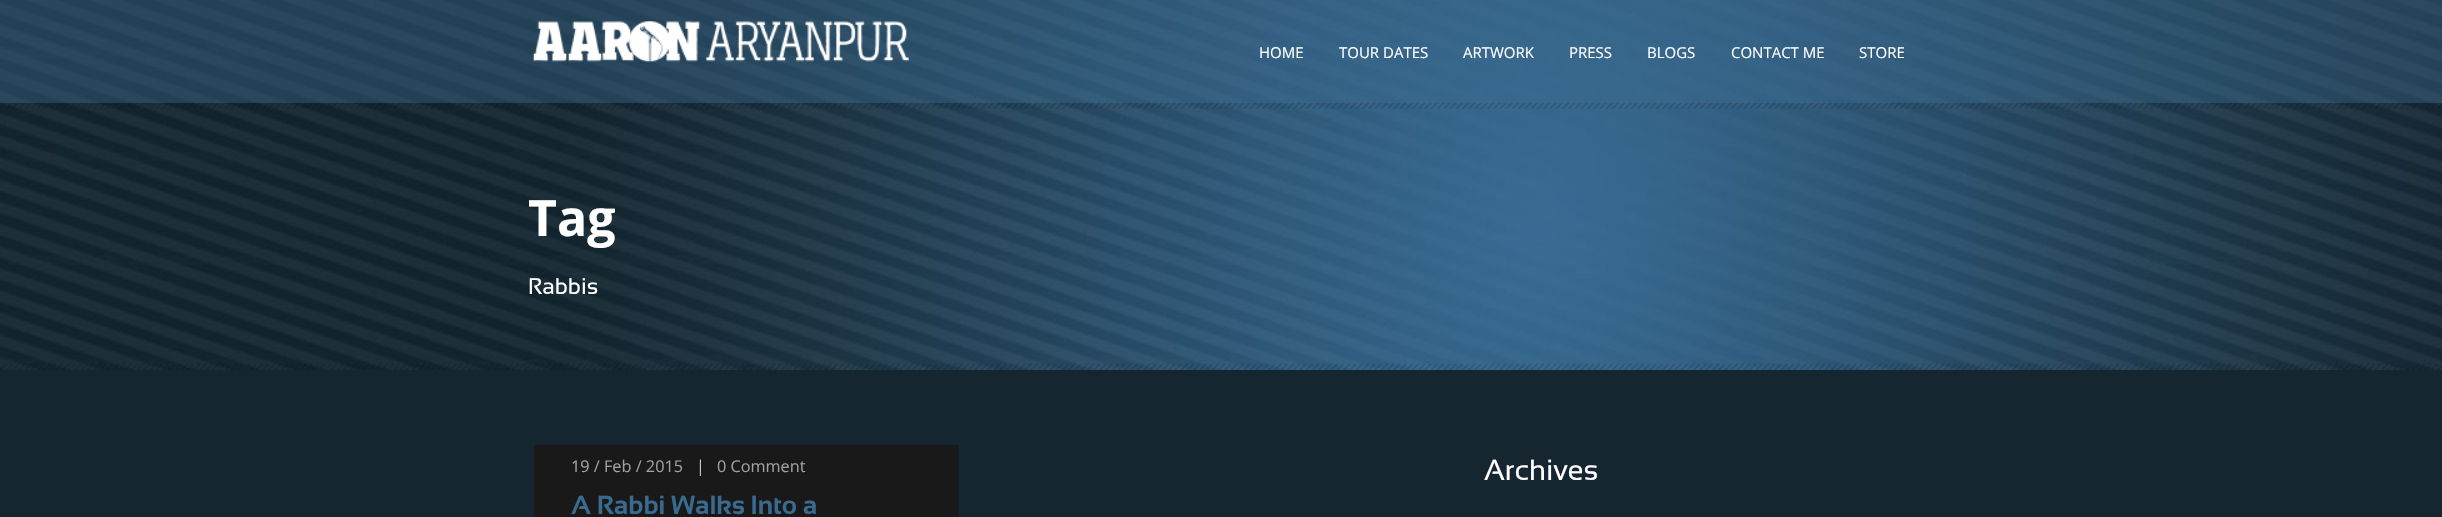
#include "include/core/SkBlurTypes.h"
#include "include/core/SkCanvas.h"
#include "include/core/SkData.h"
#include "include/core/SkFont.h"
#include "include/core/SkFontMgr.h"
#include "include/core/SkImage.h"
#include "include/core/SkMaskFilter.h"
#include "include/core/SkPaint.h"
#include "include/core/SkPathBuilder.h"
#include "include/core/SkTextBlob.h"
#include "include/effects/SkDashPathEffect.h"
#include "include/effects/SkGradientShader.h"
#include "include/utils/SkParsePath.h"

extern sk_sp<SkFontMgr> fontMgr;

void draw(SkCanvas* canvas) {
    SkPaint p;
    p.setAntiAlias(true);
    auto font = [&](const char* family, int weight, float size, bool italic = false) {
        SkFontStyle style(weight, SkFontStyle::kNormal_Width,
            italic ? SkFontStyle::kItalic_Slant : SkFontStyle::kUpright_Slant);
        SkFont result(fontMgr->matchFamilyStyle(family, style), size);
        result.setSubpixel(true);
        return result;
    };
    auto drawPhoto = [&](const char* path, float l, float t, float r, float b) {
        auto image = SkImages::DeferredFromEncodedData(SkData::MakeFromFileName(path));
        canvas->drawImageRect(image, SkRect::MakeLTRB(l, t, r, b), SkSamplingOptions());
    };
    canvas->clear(0xFF152630);
    drawPhoto("media/3.png", 0, 0, 2442, 370);
    drawPhoto("media/2.png", 0, 102, 2442, 109);
    p.setColor(0x66396B90);
    canvas->drawRect(SkRect::MakeLTRB(0, 0, 2442, 103), p);
    drawPhoto("media/1.png", 533, 21, 909, 62);
    auto font1 = font("Open Sans", 400, 15);
    p.setColor(0xFFFFFFFF);
    {
        const struct { const char* s; float x, y; } items[] = {
            {"HOME", 1259, 58},
            {"TOUR DATES", 1339, 58},
            {"ARTWORK", 1463, 58},
            {"PRESS", 1569, 58},
            {"BLOGS", 1647, 58},
            {"CONTACT ME", 1731, 58},
            {"STORE", 1859, 58},
        };
        for (auto [s, x, y] : items) {
            canvas->drawString(s, x, y, font1, p);
        }
    }
    auto font2 = font("Open Sans", 700, 50);
    canvas->drawString("Tag", 528, 236, font2, p);
    auto font3 = font("Sansation", 400, 22.5f);
    canvas->drawString("Rabbis", 528, 294, font3, p);
    drawPhoto("media/4.png", 0, 363, 2442, 370);
    p.setColor(0xFF191919);
    canvas->drawRect(SkRect::MakeLTRB(534, 445, 959, 517), p);
    auto font4 = font("Open Sans", 400, 16.25f);
    p.setColor(0xFFA0A0A0);
    canvas->drawString("19 / Feb / 2015", 571, 472, font4, p);
    p.setColor(0xFFC5C5C5);
    canvas->drawString("|", 696, 472, font4, p);
    p.setColor(0xFFA0A0A0);
    canvas->drawString("0 Comment", 717, 472, font4, p);
    auto font5 = font("Sansation", 700, 26.25f);
    p.setColor(0xFF396B90);
    canvas->drawString("A Rabbi Walks Into a", 571, 514, font5, p);
    auto font6 = font("Sansation", 400, 29);
    p.setColor(0xFFFFFFFF);
    canvas->drawString("Archives", 1484, 480, font6, p);
}
